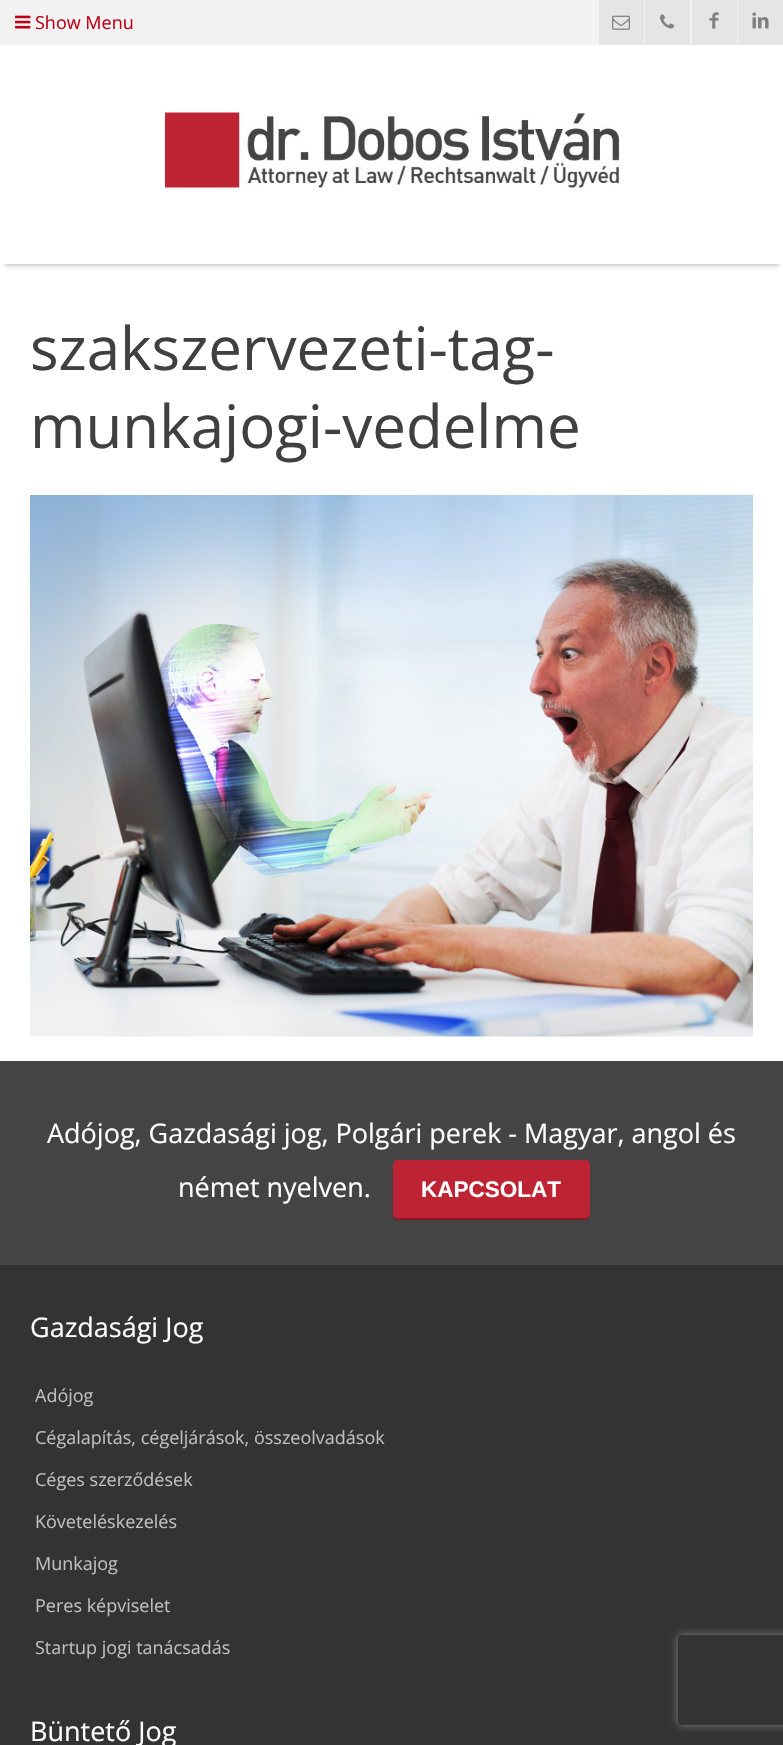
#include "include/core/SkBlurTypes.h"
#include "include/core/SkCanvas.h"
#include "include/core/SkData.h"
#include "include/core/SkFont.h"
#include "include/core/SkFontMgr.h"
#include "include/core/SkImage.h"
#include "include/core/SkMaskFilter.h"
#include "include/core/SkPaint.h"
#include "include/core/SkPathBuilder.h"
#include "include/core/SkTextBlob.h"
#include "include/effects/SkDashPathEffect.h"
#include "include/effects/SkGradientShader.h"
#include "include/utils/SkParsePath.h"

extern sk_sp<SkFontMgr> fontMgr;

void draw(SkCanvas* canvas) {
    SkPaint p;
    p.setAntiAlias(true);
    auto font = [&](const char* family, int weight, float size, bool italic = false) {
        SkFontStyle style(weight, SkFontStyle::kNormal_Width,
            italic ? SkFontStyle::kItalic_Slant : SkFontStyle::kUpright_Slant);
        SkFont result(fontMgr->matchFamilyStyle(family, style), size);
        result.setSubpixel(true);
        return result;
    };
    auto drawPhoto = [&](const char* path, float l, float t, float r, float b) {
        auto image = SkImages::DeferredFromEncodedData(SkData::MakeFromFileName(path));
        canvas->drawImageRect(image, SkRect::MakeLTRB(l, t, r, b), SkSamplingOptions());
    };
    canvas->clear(0xFF333333);
    p.setColor(0xFFFFFFFF);
    canvas->drawRect(SkRect::MakeLTRB(0, 264, 783, 1061), p);
    p.setColor(0x33000000);
    p.setMaskFilter(SkMaskFilter::MakeBlur(kNormal_SkBlurStyle, 2));
    canvas->drawRect(SkRect::MakeLTRB(5, 11, 779, 266), p);
    p.setMaskFilter(nullptr);
    p.setColor(0xFFF2F2F2);
    canvas->drawRect(SkRect::MakeLTRB(0, 0, 738, 45), p);
    drawPhoto("media/1.png", 15, 15, 31, 29);
    auto font1 = font("Open Sans", 400, 18);
    p.setColor(0xFFBF0118);
    canvas->drawString("Show Menu", 35, 29, font1, p);
    p.setColor(0xFFE5E5E5);
    canvas->drawRect(SkRect::MakeLTRB(599, 0, 644, 45), p);
    drawPhoto("media/2.png", 612, 15, 630, 30);
    canvas->drawRect(SkRect::MakeLTRB(645, 0, 690, 45), p);
    drawPhoto("media/3.png", 660, 14, 675, 29);
    canvas->drawRect(SkRect::MakeLTRB(692, 0, 737, 45), p);
    drawPhoto("media/4.png", 709, 12, 719, 29);
    canvas->drawRect(SkRect::MakeLTRB(738, 0, 783, 45), p);
    drawPhoto("media/5.png", 752, 12, 769, 29);
    p.setColor(0xFFFFFFFF);
    canvas->drawRect(SkRect::MakeLTRB(0, 45, 783, 264), p);
    drawPhoto("media/6.png", 165, 112, 620, 188);
    auto font2 = font("Open Sans", 400, 60);
    p.setColor(0xFF404040);
    canvas->drawString("szakszervezeti-tag-", 30, 370, font2, p);
    canvas->drawString("munkajogi-vedelme", 30, 448, font2, p);
    drawPhoto("media/7.png", 30, 495, 753, 1037);
    p.setColor(0xFF444444);
    canvas->drawRect(SkRect::MakeLTRB(0, 1061, 783, 1265), p);
    auto font3 = font("Open Sans", 400, 27);
    p.setColor(0xFFFFFFFF);
    canvas->drawString("Adójog, Gazdasági jog, Polgári perek - Magyar, angol és", 47, 1143, font3, p);
    canvas->drawString("német nyelven.", 178, 1197, font3, p);
    p.setColor(0xFFBE2334);
    canvas->drawRoundRect(SkRect::MakeLTRB(393, 1160, 590, 1220), 5, 5, p);
    p.setColor(0x4D000000);
    canvas->drawPath(SkPathBuilder().moveTo(393, 1214).lineTo(393, 1215).cubicTo(393, 1218, 395, 1220, 398, 1220).lineTo(585, 1220).cubicTo(588, 1220, 590, 1218, 590, 1215).lineTo(590, 1214).cubicTo(590, 1216, 587, 1218, 585, 1218).lineTo(398, 1218).cubicTo(395, 1218, 393, 1216, 393, 1214).close().detach(), p);
    auto font4 = font("Liberation Sans", 700, 22.5f);
    p.setColor(0xFFFFFFFF);
    canvas->drawString("KAPCSOLAT", 421, 1197, font4, p);
    canvas->drawString("Gazdasági Jog", 30, 1337, font3, p);
    p.setColor(0xFFBFBFBF);
    {
        const struct { const char* s; float x, y; } items[] = {
            {"Adójog", 35, 1402},
            {"Cégalapítás, cégeljárások, összeolvadások", 35, 1444},
            {"Céges szerződések", 35, 1486},
            {"Követeléskezelés", 35, 1528},
            {"Munkajog", 35, 1570},
            {"Peres képviselet", 35, 1612},
            {"Startup jogi tanácsadás", 35, 1654},
        };
        for (auto [s, x, y] : items) {
            canvas->drawString(s, x, y, font1, p);
        }
    }
    p.setColor(0xFFFFFFFF);
    canvas->drawString("Büntető Jog", 30, 1741, font3, p);
    canvas->save();
    canvas->clipPath(SkPathBuilder(SkPathFillType::kEvenOdd).moveTo(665, 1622).lineTo(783, 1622).lineTo(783, 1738).lineTo(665, 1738).close().moveTo(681, 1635).lineTo(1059, 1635).cubicTo(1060.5f, 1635, 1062, 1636.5f, 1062, 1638).lineTo(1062, 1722).cubicTo(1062, 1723.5f, 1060.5f, 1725, 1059, 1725).lineTo(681, 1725).cubicTo(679.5f, 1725, 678, 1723.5f, 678, 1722).lineTo(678, 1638).cubicTo(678, 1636.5f, 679.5f, 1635, 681, 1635).close().detach(), true);
    p.setColor(0xFF808080);
    p.setMaskFilter(SkMaskFilter::MakeBlur(kNormal_SkBlurStyle, 4));
    canvas->drawRoundRect(SkRect::MakeLTRB(678, 1635, 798, 1725), 3, 3, p);
    p.setMaskFilter(nullptr);
    canvas->restore();
}
